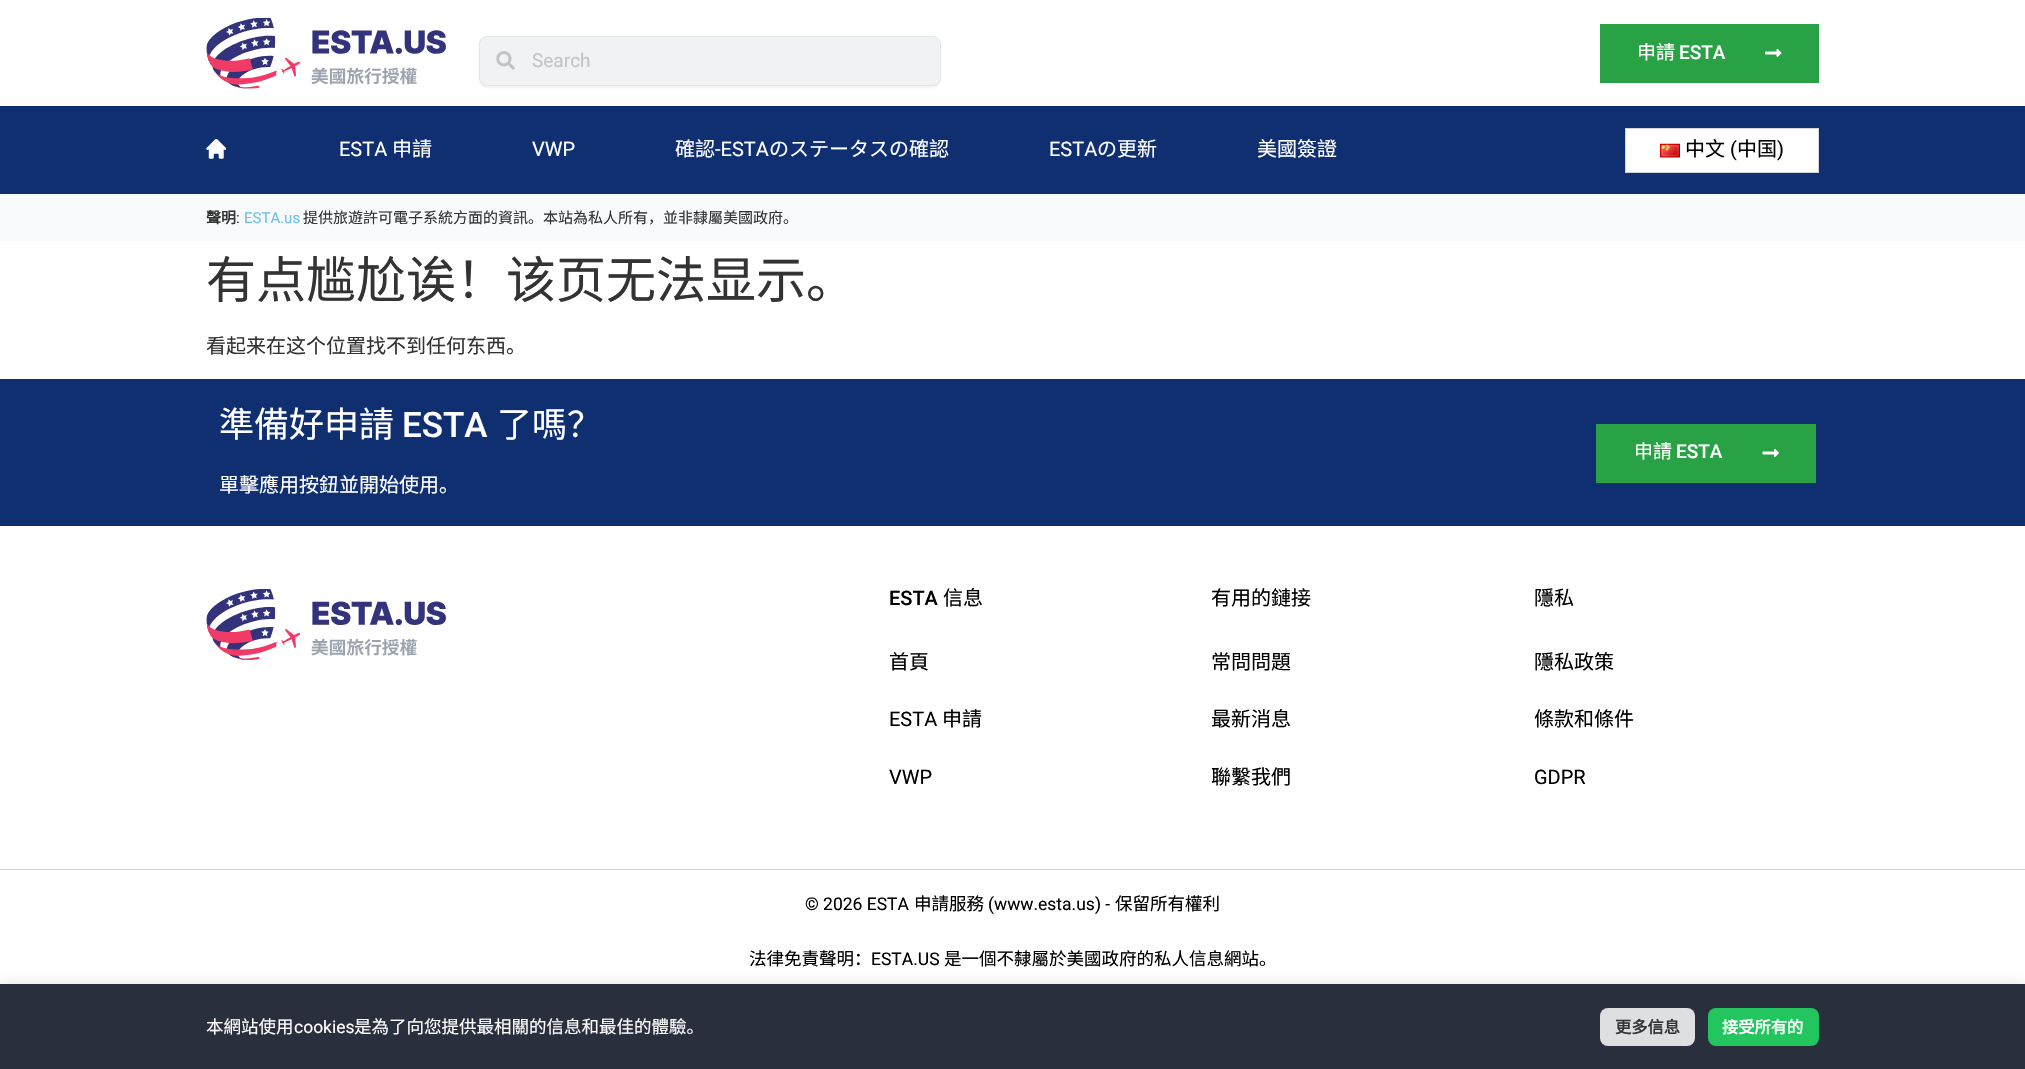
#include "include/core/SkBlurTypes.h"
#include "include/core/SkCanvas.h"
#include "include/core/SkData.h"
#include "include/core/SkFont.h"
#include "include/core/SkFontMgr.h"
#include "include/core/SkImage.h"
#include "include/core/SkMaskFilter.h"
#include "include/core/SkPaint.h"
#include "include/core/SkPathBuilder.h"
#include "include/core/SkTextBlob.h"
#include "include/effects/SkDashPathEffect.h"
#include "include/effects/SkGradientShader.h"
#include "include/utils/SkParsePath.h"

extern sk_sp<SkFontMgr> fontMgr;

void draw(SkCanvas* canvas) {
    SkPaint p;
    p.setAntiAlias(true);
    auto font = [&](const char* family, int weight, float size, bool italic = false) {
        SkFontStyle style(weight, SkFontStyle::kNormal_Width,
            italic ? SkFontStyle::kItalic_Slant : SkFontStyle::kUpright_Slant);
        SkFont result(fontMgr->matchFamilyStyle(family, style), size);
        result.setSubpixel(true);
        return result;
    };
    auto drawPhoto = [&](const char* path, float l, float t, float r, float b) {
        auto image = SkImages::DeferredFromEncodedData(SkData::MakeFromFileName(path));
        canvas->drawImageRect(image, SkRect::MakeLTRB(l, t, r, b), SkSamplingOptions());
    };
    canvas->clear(0xFFFFFFFF);
    drawPhoto("media/1.png", 206, 18, 446, 89);
    p.setColor(0x0D101828);
    p.setMaskFilter(SkMaskFilter::MakeBlur(kNormal_SkBlurStyle, 1));
    canvas->drawRoundRect(SkRect::MakeLTRB(479, 38, 941, 88), 8, 8, p);
    p.setMaskFilter(nullptr);
    p.setColor(0xFFF1F2F3);
    canvas->drawRoundRect(SkRect::MakeLTRB(479.5f, 36.5f, 940.5f, 85.5f), 7.5f, 7.5f, p);
    p.setStyle(SkPaint::kStroke_Style);
    p.setStrokeWidth(1);
    p.setColor(0xFFE5E5E5);
    canvas->drawRoundRect(SkRect::MakeLTRB(479.5f, 36.5f, 940.5f, 85.5f), 7.5f, 7.5f, p);
    drawPhoto("media/2.png", 496, 51, 515, 70);
    auto font1 = font("Roboto", 400, 19);
    p.setStyle(SkPaint::kFill_Style);
    p.setColor(0xFFC2C3C3);
    canvas->drawString("Search", 532, 67, font1, p);
    p.setColor(0xFF28A244);
    canvas->drawRect(SkRect::MakeLTRB(1600, 24, 1819, 83), p);
    auto font2 = font("Noto Sans CJK SC", 400, 19);
    p.setColor(0xFFFFFFFF);
    canvas->drawString("申請", 1637, 59, font2, p);
    auto font3 = font("Roboto", 500, 19);
    canvas->drawString("ESTA", 1679, 59, font3, p);
    drawPhoto("media/3.png", 1765, 49, 1782, 57);
    p.setColor(0xFF0F2F71);
    canvas->drawRect(SkRect::MakeLTRB(0, 106, 2025, 194), p);
    drawPhoto("media/4.png", 206, 139, 226, 159);
    auto font4 = font("Roboto", 400, 20);
    p.setColor(0xFFFFFFFF);
    canvas->drawString("ESTA", 339, 156, font4, p);
    auto font5 = font("Noto Sans CJK SC", 400, 20);
    canvas->drawString("申請", 392, 156, font5, p);
    canvas->drawString("VWP", 532, 156, font4, p);
    canvas->drawString("確認", 675, 156, font5, p);
    canvas->drawString("-ESTA", 715, 156, font4, p);
    canvas->drawString("のステータスの確認", 769, 156, font5, p);
    canvas->drawString("ESTA", 1049, 156, font4, p);
    canvas->drawString("の更新", 1097, 156, font5, p);
    canvas->drawString("美國簽證", 1257, 156, font5, p);
    canvas->drawRect(SkRect::MakeLTRB(1625.5f, 128.5f, 1818.5f, 172.5f), p);
    p.setStyle(SkPaint::kStroke_Style);
    p.setColor(0xFFD1D5DB);
    canvas->drawRect(SkRect::MakeLTRB(1625.5f, 128.5f, 1818.5f, 172.5f), p);
    drawPhoto("media/5.png", 1660, 143, 1680, 158);
    p.setStyle(SkPaint::kFill_Style);
    p.setColor(0xFF000000);
    canvas->drawString("中文", 1685, 156, font5, p);
    canvas->drawString("(", 1730, 156, font4, p);
    canvas->drawString("中国", 1737, 156, font5, p);
    canvas->drawString(")", 1777, 156, font4, p);
    p.setColor(0xFFF9FAFB);
    canvas->drawRect(SkRect::MakeLTRB(0, 194, 2025, 241), p);
    auto font6 = font("Noto Sans CJK SC", 700, 15);
    p.setColor(0xFF333333);
    canvas->drawString("聲明", 206, 223, font6, p);
    auto font7 = font("Roboto", 400, 15);
    canvas->drawString(":", 236, 223, font7, p);
    p.setColor(0xFF6EC1E4);
    canvas->drawString("ESTA.us", 244, 223, font7, p);
    auto font8 = font("Noto Sans CJK SC", 400, 15);
    p.setColor(0xFF333333);
    canvas->drawString("提供旅遊許可電子系統方面的資訊。本站為私人所有，並非隸屬美國政府。", 303, 223, font8, p);
    auto font9 = font("Noto Sans CJK SC", 400, 50);
    canvas->drawString("有点尴尬诶！该页无法显示。", 206, 298, font9, p);
    canvas->drawString("看起来在这个位置找不到任何东西。", 206, 353, font5, p);
    p.setColor(0xFF0F2F71);
    canvas->drawRect(SkRect::MakeLTRB(0, 379, 2025, 526), p);
    auto font10 = font("Noto Sans CJK SC", 400, 35);
    p.setColor(0xFFFFFFFF);
    canvas->drawString("準備好申請", 219, 437, font10, p);
    auto font11 = font("Roboto", 500, 35);
    canvas->drawString("ESTA", 402, 437, font11, p);
    canvas->drawString("了嗎？", 497, 437, font10, p);
    canvas->drawString("單擊應用按鈕並開始使用。", 219, 492, font5, p);
    p.setColor(0xFF28A244);
    canvas->drawRect(SkRect::MakeLTRB(1596, 424, 1816, 483), p);
    p.setColor(0xFFFFFFFF);
    canvas->drawString("申請", 1634, 458, font2, p);
    canvas->drawString("ESTA", 1676, 458, font3, p);
    drawPhoto("media/6.png", 1762, 449, 1779, 457);
    drawPhoto("media/7.png", 206, 589, 446, 660);
    auto font12 = font("Roboto", 500, 20);
    p.setColor(0xFF000000);
    canvas->drawString("ESTA", 889, 605, font12, p);
    canvas->drawString("信息", 943, 605, font5, p);
    canvas->drawString("首頁", 889, 669, font5, p);
    canvas->drawString("ESTA", 889, 726, font4, p);
    canvas->drawString("申請", 942, 726, font5, p);
    canvas->drawString("VWP", 889, 784, font4, p);
    {
        const struct { const char* s; float x, y; } items[] = {
            {"有用的鏈接", 1211, 605},
            {"常問問題", 1211, 669},
            {"最新消息", 1211, 726},
            {"聯繫我們", 1211, 784},
            {"隱私", 1534, 605},
            {"隱私政策", 1534, 669},
            {"條款和條件", 1534, 726},
        };
        for (auto [s, x, y] : items) {
            canvas->drawString(s, x, y, font5, p);
        }
    }
    canvas->drawString("GDPR", 1534, 784, font4, p);
    p.setColor(0xFFD5D5D5);
    canvas->drawRect(SkRect::MakeLTRB(0, 869, 2025, 870), p);
    auto font13 = font("Roboto", 400, 17.5f);
    p.setColor(0xFF000000);
    canvas->drawString("© 2026 ESTA", 805, 910, font13, p);
    auto font14 = font("Noto Sans CJK SC", 400, 17.5f);
    canvas->drawString("申請服務", 914, 910, font14, p);
    canvas->drawString("(www.esta.us) -", 988, 910, font13, p);
    canvas->drawString("保留所有權利", 1115, 910, font14, p);
    canvas->drawString("法律免責聲明：", 749, 965, font14, p);
    canvas->drawString("ESTA.US", 871, 965, font13, p);
    canvas->drawString("是一個不隸屬於美國政府的私人信息網站。", 944, 965, font14, p);
    p.setColor(0x4DACABAB);
    p.setMaskFilter(SkMaskFilter::MakeBlur(kNormal_SkBlurStyle, 6));
    canvas->drawRect(SkRect::MakeLTRB(0, 983, 2025, 1069), p);
    p.setMaskFilter(nullptr);
    p.setColor(0xFF292F3D);
    canvas->drawRect(SkRect::MakeLTRB(0, 984, 2025, 1069), p);
    p.setColor(0xFFFFFFFF);
    canvas->drawString("本網站使用", 206, 1033, font14, p);
    canvas->drawString("cookies", 294, 1033, font13, p);
    canvas->drawString("是為了向您提供最相關的信息和最佳的體驗。", 354, 1033, font14, p);
    p.setColor(0xFFDEDFE0);
    canvas->drawRoundRect(SkRect::MakeLTRB(1600, 1008, 1695, 1046), 8, 8, p);
    auto font15 = font("Noto Sans CJK SC", 700, 16.25f);
    p.setColor(0xFF333333);
    canvas->drawString("更多信息", 1615, 1033, font15, p);
    p.setColor(0xFF22C55E);
    canvas->drawRoundRect(SkRect::MakeLTRB(1708, 1008, 1819, 1046), 8, 8, p);
    p.setColor(0xFFFFFFFF);
    canvas->drawString("接受所有的", 1722, 1033, font15, p);
}
